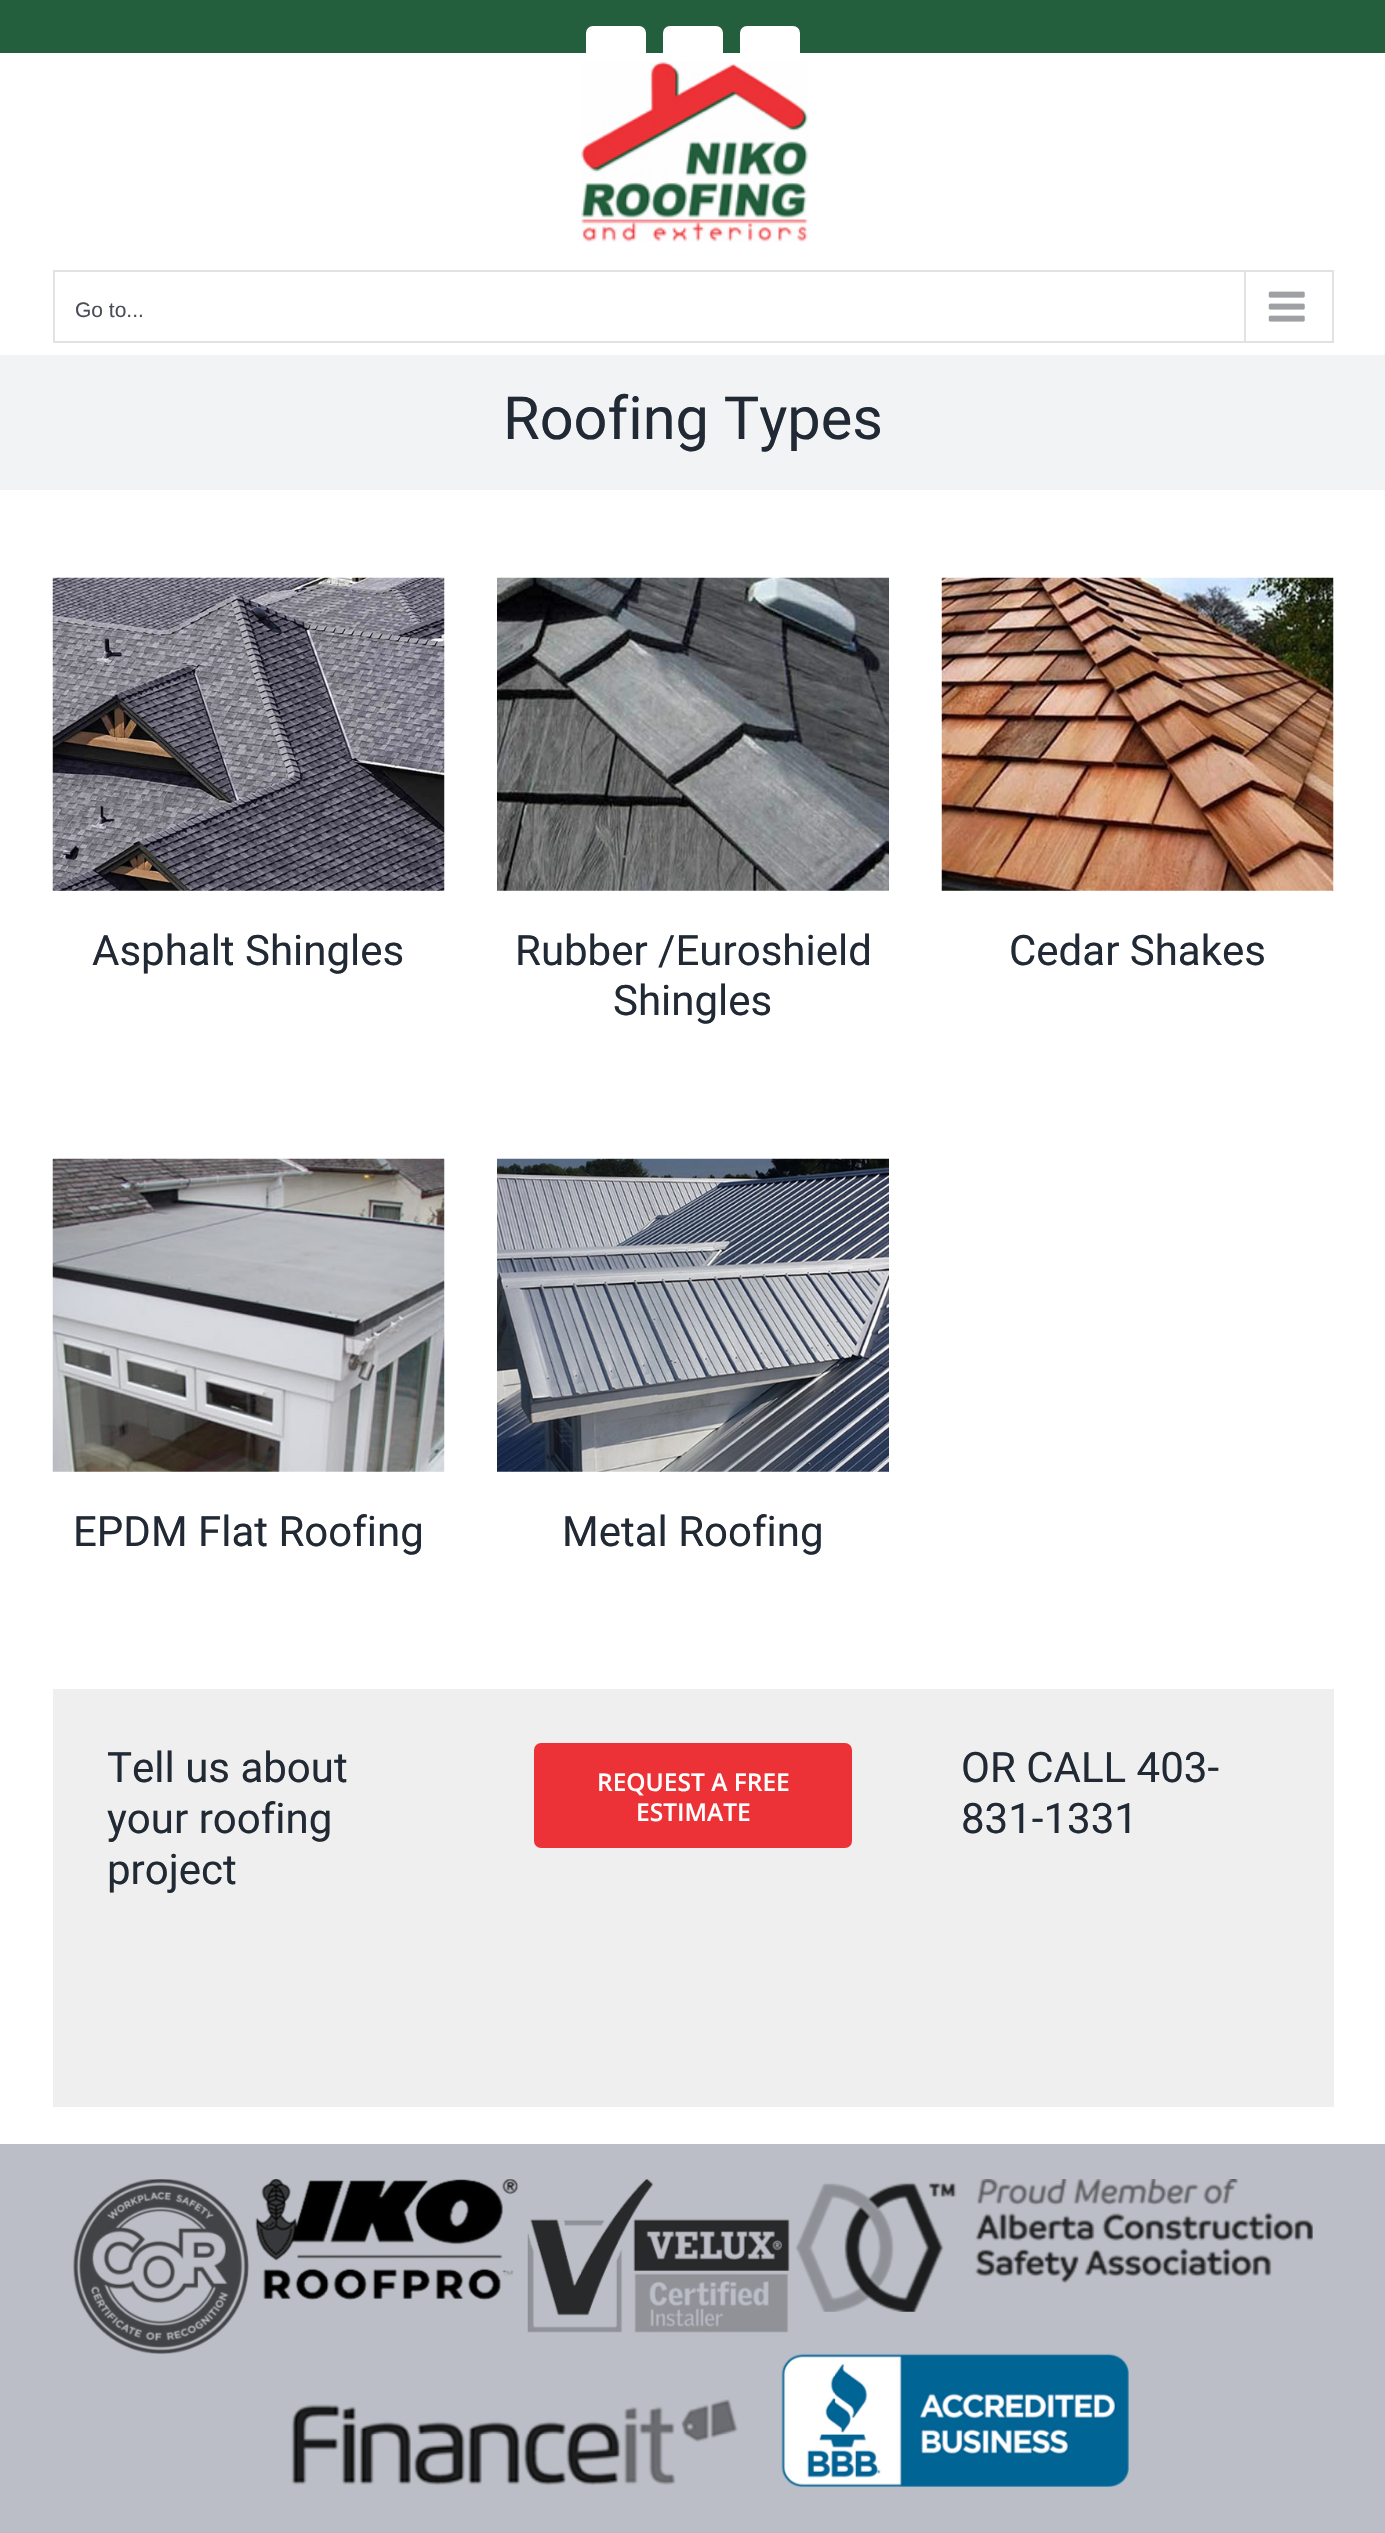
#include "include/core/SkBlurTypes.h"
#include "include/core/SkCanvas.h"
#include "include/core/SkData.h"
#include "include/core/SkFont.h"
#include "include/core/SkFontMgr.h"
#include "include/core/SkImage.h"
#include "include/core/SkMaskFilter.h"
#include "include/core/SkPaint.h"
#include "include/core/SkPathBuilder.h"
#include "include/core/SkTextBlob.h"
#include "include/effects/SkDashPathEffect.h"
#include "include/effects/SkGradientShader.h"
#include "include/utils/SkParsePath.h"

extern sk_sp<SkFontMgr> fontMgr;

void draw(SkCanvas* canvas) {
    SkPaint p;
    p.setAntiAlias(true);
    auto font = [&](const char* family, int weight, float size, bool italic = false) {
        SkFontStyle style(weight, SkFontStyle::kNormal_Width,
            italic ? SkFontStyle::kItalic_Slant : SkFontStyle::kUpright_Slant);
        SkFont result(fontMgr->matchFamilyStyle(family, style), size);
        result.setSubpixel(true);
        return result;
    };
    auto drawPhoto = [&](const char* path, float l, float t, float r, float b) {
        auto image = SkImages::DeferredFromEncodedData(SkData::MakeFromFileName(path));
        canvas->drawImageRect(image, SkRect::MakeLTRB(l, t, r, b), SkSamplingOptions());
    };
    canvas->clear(0xFFFFFFFF);
    p.setColor(0xFF235E3D);
    canvas->drawRect(SkRect::MakeLTRB(0, 0, 1385, 53), p);
    p.setColor(0xFFFFFFFF);
    canvas->drawRoundRect(SkRect::MakeLTRB(587, 27, 645, 85), 6, 6, p);
    p.setStyle(SkPaint::kStroke_Style);
    p.setStrokeWidth(2);
    canvas->drawRoundRect(SkRect::MakeLTRB(587, 27, 645, 85), 6, 6, p);
    p.setStyle(SkPaint::kFill_Style);
    canvas->drawRoundRect(SkRect::MakeLTRB(664, 27, 722, 85), 6, 6, p);
    p.setStyle(SkPaint::kStroke_Style);
    canvas->drawRoundRect(SkRect::MakeLTRB(664, 27, 722, 85), 6, 6, p);
    p.setStyle(SkPaint::kFill_Style);
    canvas->drawRoundRect(SkRect::MakeLTRB(741, 27, 799, 85), 6, 6, p);
    p.setStyle(SkPaint::kStroke_Style);
    canvas->drawRoundRect(SkRect::MakeLTRB(741, 27, 799, 85), 6, 6, p);
    drawPhoto("media/1.png", 581, 62, 809, 242);
    p.setColor(0xFFE2E2E2);
    canvas->drawRect(SkRect::MakeLTRB(54, 271, 1333, 342), p);
    auto font1 = font("Liberation Sans", 400, 21);
    p.setStyle(SkPaint::kFill_Style);
    p.setColor(0xFF4A4E57);
    canvas->drawString("Go to...", 75, 317, font1, p);
    p.setColor(0xFFE2E2E2);
    canvas->drawRect(SkRect::MakeLTRB(1244, 271, 1246, 341), p);
    drawPhoto("media/2.png", 1268, 291, 1305, 322);
    p.setColor(0xFFF2F3F5);
    canvas->drawRect(SkRect::MakeLTRB(0, 355, 1385, 490), p);
    auto font2 = font("Roboto", 400, 59.5f);
    p.setColor(0xFF212934);
    canvas->drawString("Roofing Types", 503, 439, font2, p);
    drawPhoto("media/3.png", 52, 577, 445, 891);
    auto font3 = font("Roboto", 400, 42);
    canvas->drawString("Asphalt Shingles", 92, 965, font3, p);
    drawPhoto("media/4.png", 497, 577, 889, 891);
    canvas->drawString("Rubber /Euroshield", 515, 965, font3, p);
    canvas->drawString("Shingles", 613, 1015, font3, p);
    drawPhoto("media/5.png", 941, 577, 1334, 891);
    canvas->drawString("Cedar Shakes", 1009, 965, font3, p);
    drawPhoto("media/6.png", 52, 1158, 445, 1472);
    canvas->drawString("EPDM Flat Roofing", 73, 1546, font3, p);
    drawPhoto("media/7.png", 497, 1158, 889, 1472);
    canvas->drawString("Metal Roofing", 562, 1546, font3, p);
    p.setColor(0xFFEFEFEF);
    canvas->drawRect(SkRect::MakeLTRB(53, 1689, 1334, 2107), p);
    p.setColor(0xFF212934);
    {
        const struct { const char* s; float x, y; } items[] = {
            {"Tell us about", 107, 1782},
            {"your roofing", 107, 1833},
            {"project", 107, 1884},
        };
        for (auto [s, x, y] : items) {
            canvas->drawString(s, x, y, font3, p);
        }
    }
    p.setColor(0xFFED3237);
    canvas->drawRoundRect(SkRect::MakeLTRB(534, 1743, 852, 1848), 7, 7, p);
    auto font4 = font("Open Sans", 600, 24.5f);
    p.setColor(0xFFFFFFFF);
    canvas->drawString("REQUEST A FREE", 597, 1791, font4, p);
    canvas->drawString("ESTIMATE", 636, 1821, font4, p);
    p.setColor(0xFF212934);
    canvas->drawString("OR CALL 403-", 961, 1782, font3, p);
    canvas->drawString("831-1331", 961, 1833, font3, p);
    p.setColor(0xFFBBBEC6);
    canvas->drawRect(SkRect::MakeLTRB(0, 2144, 1385, 2533), p);
    drawPhoto("media/8.png", 73, 2179, 249, 2354);
    drawPhoto("media/9.png", 255, 2179, 519, 2300);
    drawPhoto("media/10.png", 527, 2179, 790, 2333);
    drawPhoto("media/11.png", 796, 2179, 1313, 2312);
    drawPhoto("media/12.png", 291, 2399, 738, 2486);
    drawPhoto("media/13.png", 781, 2353, 1129, 2487);
}
